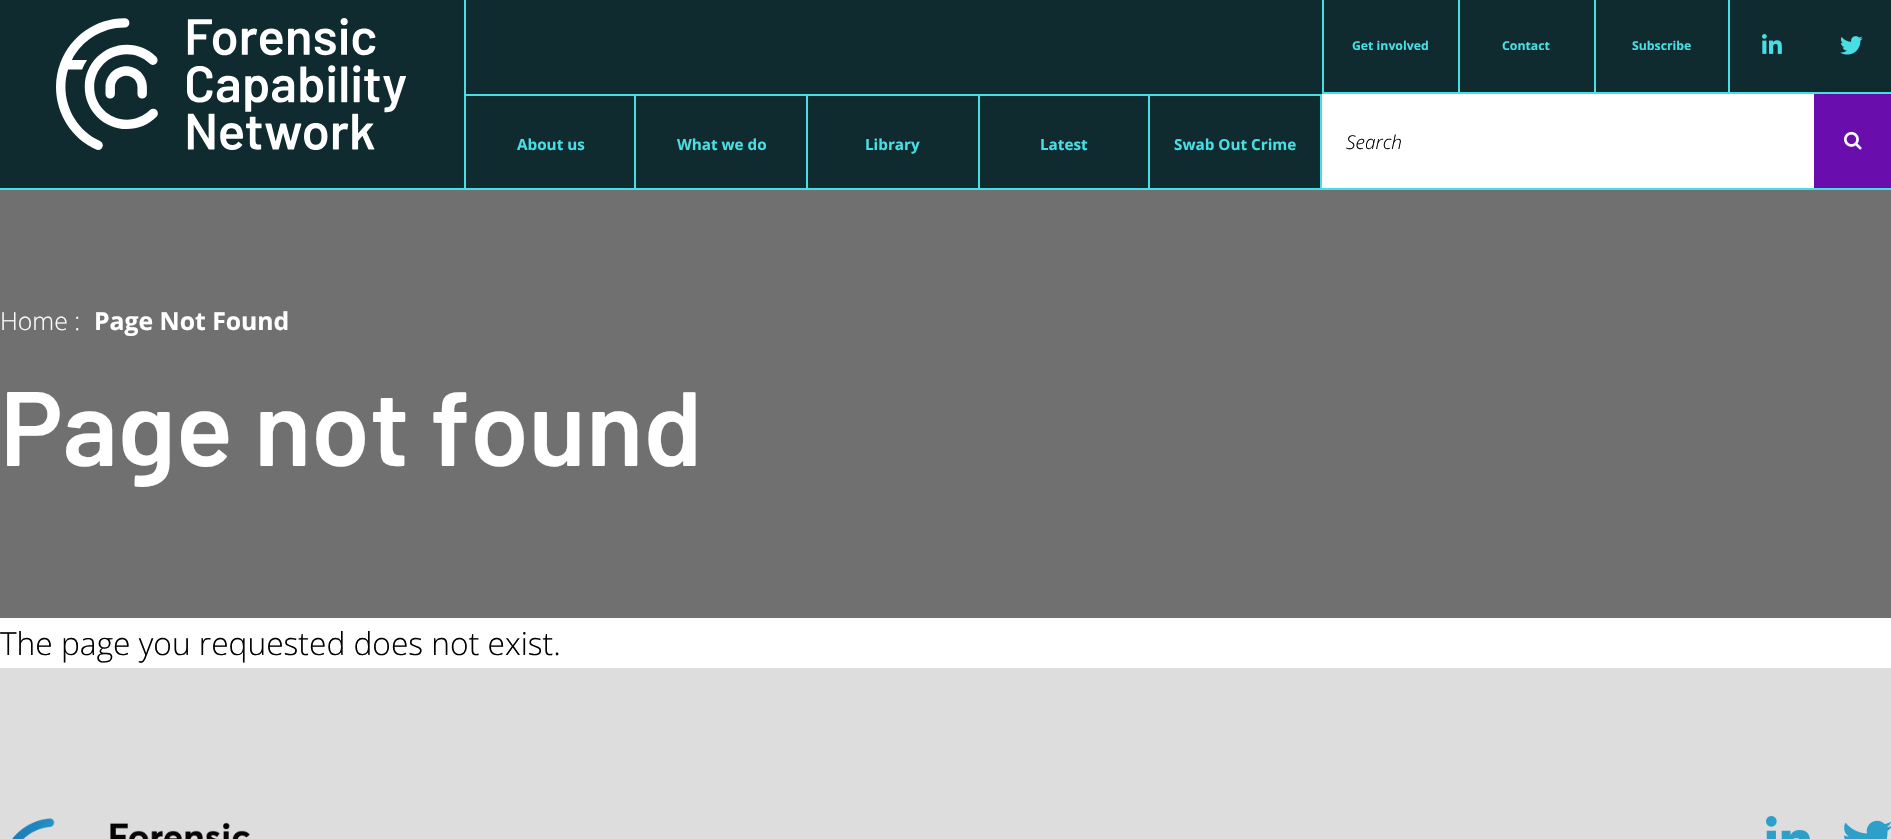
#include "include/core/SkBlurTypes.h"
#include "include/core/SkCanvas.h"
#include "include/core/SkData.h"
#include "include/core/SkFont.h"
#include "include/core/SkFontMgr.h"
#include "include/core/SkImage.h"
#include "include/core/SkMaskFilter.h"
#include "include/core/SkPaint.h"
#include "include/core/SkPathBuilder.h"
#include "include/core/SkTextBlob.h"
#include "include/effects/SkDashPathEffect.h"
#include "include/effects/SkGradientShader.h"
#include "include/utils/SkParsePath.h"

extern sk_sp<SkFontMgr> fontMgr;

void draw(SkCanvas* canvas) {
    SkPaint p;
    p.setAntiAlias(true);
    auto font = [&](const char* family, int weight, float size, bool italic = false) {
        SkFontStyle style(weight, SkFontStyle::kNormal_Width,
            italic ? SkFontStyle::kItalic_Slant : SkFontStyle::kUpright_Slant);
        SkFont result(fontMgr->matchFamilyStyle(family, style), size);
        result.setSubpixel(true);
        return result;
    };
    auto drawPhoto = [&](const char* path, float l, float t, float r, float b) {
        auto image = SkImages::DeferredFromEncodedData(SkData::MakeFromFileName(path));
        canvas->drawImageRect(image, SkRect::MakeLTRB(l, t, r, b), SkSamplingOptions());
    };
    canvas->clear(0xFFFFFFFF);
    {
        const struct { float l, t, r, b; SkColor color; } items[] = {
            {0, 0, 1891, 188, 0xFF0F2B2F},
            {0, 188, 1891, 190, 0xFF49DEE4},
            {464, 0, 466, 188, 0xFF49DEE4},
        };
        for (auto [l, t, r, b, color] : items) {
            p.setColor(color);
            canvas->drawRect(SkRect::MakeLTRB(l, t, r, b), p);
        }
    }
    drawPhoto("media/1.png", 56, 18, 406, 150);
    canvas->drawRect(SkRect::MakeLTRB(466, 94, 1322, 96), p);
    canvas->drawRect(SkRect::MakeLTRB(634, 96, 636, 188), p);
    auto font1 = font("Open Sans", 700, 15.25f);
    canvas->drawString("About us", 517, 150, font1, p);
    canvas->drawRect(SkRect::MakeLTRB(806, 96, 808, 188), p);
    canvas->drawString("What we do", 677, 150, font1, p);
    canvas->drawRect(SkRect::MakeLTRB(978, 96, 980, 188), p);
    canvas->drawString("Library", 865, 150, font1, p);
    canvas->drawRect(SkRect::MakeLTRB(1148, 96, 1150, 188), p);
    canvas->drawString("Latest", 1040, 150, font1, p);
    canvas->drawRect(SkRect::MakeLTRB(1320, 96, 1322, 188), p);
    canvas->drawString("Swab Out Crime", 1174, 150, font1, p);
    canvas->drawRect(SkRect::MakeLTRB(1322, 92, 1891, 94), p);
    canvas->drawRect(SkRect::MakeLTRB(1322, 0, 1324, 92), p);
    auto font2 = font("Open Sans", 700, 12.25f);
    canvas->drawString("Get involved", 1352, 50, font2, p);
    canvas->drawRect(SkRect::MakeLTRB(1458, 0, 1460, 92), p);
    canvas->drawString("Contact", 1502, 50, font2, p);
    canvas->drawRect(SkRect::MakeLTRB(1594, 0, 1596, 92), p);
    canvas->drawString("Subscribe", 1632, 50, font2, p);
    canvas->drawRect(SkRect::MakeLTRB(1728, 0, 1730, 94), p);
    drawPhoto("media/2.png", 1762, 34, 1782, 54);
    drawPhoto("media/3.png", 1840, 36, 1863, 55);
    p.setColor(0xFFFFFFFF);
    canvas->drawRect(SkRect::MakeLTRB(1322, 94, 1814, 188), p);
    auto font3 = font("Open Sans", 300, 19, true);
    p.setColor(0xFF000000);
    canvas->drawString("Search", 1346, 149, font3, p);
    p.setColor(0xFF6A0DAD);
    canvas->drawRect(SkRect::MakeLTRB(1814, 94, 1891, 188), p);
    drawPhoto("media/4.png", 1844, 131, 1862, 150);
    p.setColor(0xFF707070);
    canvas->drawRect(SkRect::MakeLTRB(0, 190, 1891, 618), p);
    auto font4 = font("Open Sans", 300, 24.75f);
    p.setColor(0xFFFFFFFF);
    canvas->drawString("Home :", 0, 330, font4, p);
    auto font5 = font("Open Sans", 700, 24.75f);
    canvas->drawString("Page Not Found", 94, 330, font5, p);
    auto font6 = font("Barlow", 600, 105.5f);
    canvas->drawString("Page not found", 0, 466, font6, p);
    auto font7 = font("Open Sans", 300, 31.7f);
    p.setColor(0xFF000000);
    canvas->drawString("The page you requested does not exist.", 0, 655, font7, p);
    p.setColor(0xFFDDDDDD);
    canvas->drawRect(SkRect::MakeLTRB(0, 668, 1891, 839), p);
    drawPhoto("media/5.png", 12, 818, 250, 839);
    drawPhoto("media/6.png", 1766, 816, 1810, 839);
    drawPhoto("media/7.png", 1844, 820, 1891, 839);
}
